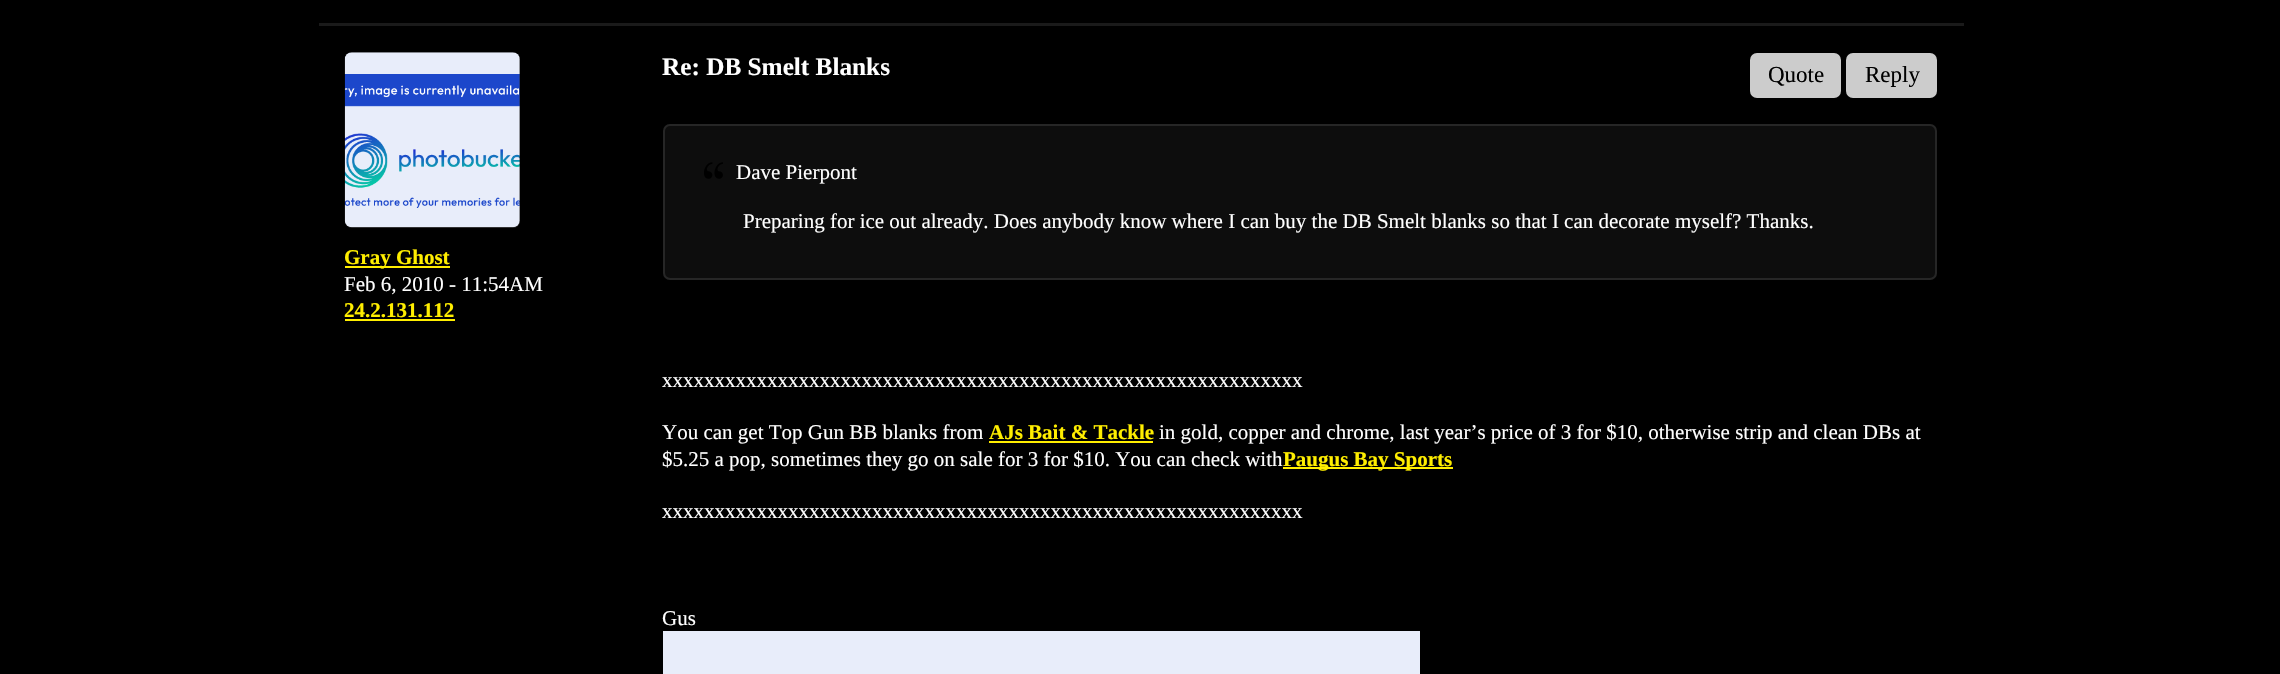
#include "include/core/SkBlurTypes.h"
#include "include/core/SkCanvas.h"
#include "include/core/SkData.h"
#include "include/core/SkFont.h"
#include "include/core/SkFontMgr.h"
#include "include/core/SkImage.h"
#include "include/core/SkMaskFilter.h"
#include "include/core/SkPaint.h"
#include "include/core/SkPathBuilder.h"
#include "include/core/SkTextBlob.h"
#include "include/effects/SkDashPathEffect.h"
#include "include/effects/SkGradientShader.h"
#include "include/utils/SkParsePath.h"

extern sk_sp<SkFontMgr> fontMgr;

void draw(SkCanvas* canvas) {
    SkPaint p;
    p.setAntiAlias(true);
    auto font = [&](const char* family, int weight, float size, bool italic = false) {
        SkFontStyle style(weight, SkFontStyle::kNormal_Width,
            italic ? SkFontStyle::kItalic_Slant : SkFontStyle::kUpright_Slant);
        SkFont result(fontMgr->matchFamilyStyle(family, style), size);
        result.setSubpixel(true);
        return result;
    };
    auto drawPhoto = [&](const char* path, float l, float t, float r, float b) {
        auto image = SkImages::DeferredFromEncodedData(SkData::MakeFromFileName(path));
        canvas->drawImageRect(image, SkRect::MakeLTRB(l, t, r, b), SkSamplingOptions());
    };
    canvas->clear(0xFF000000);
    p.setColor(0xFF1A1A1A);
    canvas->drawRect(SkRect::MakeLTRB(319, 23, 1964, 26), p);
    p.setColor(0xFF262626);
    canvas->drawRoundRect(SkRect::MakeLTRB(345, 53, 520, 228), 7, 7, p);
    drawPhoto("media/1.png", 344, 52, 520, 228);
    p.setColor(0xFFFFEE00);
    canvas->drawRect(SkRect::MakeLTRB(345, 266, 450, 268), p);
    auto font1 = font("Liberation Serif", 700, 21);
    canvas->drawString("Gray Ghost", 344, 264, font1, p);
    auto font2 = font("Liberation Serif", 400, 21);
    p.setColor(0xFFFFFFFF);
    canvas->drawString("Feb 6, 2010 - 11:54AM", 344, 291, font2, p);
    p.setColor(0xFFFFEE00);
    canvas->drawString("24.2.131.112", 344, 317, font1, p);
    canvas->drawRect(SkRect::MakeLTRB(345, 319, 455, 321), p);
    auto font3 = font("Liberation Serif", 700, 25.25f);
    p.setColor(0xFFFFFFFF);
    canvas->drawString("Re: DB Smelt Blanks", 662, 75, font3, p);
    p.setColor(0xFFCCCCCC);
    canvas->drawRoundRect(SkRect::MakeLTRB(1750, 53, 1841, 98), 7, 7, p);
    auto font4 = font("Liberation Serif", 400, 23);
    p.setColor(0xFF000000);
    canvas->drawString("Quote", 1768, 82, font4, p);
    p.setColor(0xFFCCCCCC);
    canvas->drawRoundRect(SkRect::MakeLTRB(1846, 53, 1937, 98), 7, 7, p);
    p.setColor(0xFF000000);
    canvas->drawString("Reply", 1865, 82, font4, p);
    p.setColor(0xFF0D0D0D);
    canvas->drawRoundRect(SkRect::MakeLTRB(663, 124, 1937, 280), 7, 7, p);
    p.setStyle(SkPaint::kStroke_Style);
    p.setStrokeWidth(2);
    p.setColor(0x1AFFFFFF);
    canvas->drawRoundRect(SkRect::MakeLTRB(664, 125, 1936, 279), 6, 6, p);
    drawPhoto("media/2.png", 704, 162, 723, 179);
    p.setStyle(SkPaint::kFill_Style);
    p.setColor(0xFFFFFFFF);
    {
        const struct { const char* s; float x, y; } items[] = {
            {"Dave Pierpont", 736, 179},
            {"Preparing for ice out already. Does anybody know where I can buy the DB Smelt blanks so that I can decorate myself? Thanks.", 743, 228},
            {"xxxxxxxxxxxxxxxxxxxxxxxxxxxxxxxxxxxxxxxxxxxxxxxxxxxxxxxxxxxxx", 662, 387},
            {"You can get Top Gun BB blanks from", 662, 439},
        };
        for (auto [s, x, y] : items) {
            canvas->drawString(s, x, y, font2, p);
        }
    }
    p.setColor(0xFFFFEE00);
    canvas->drawString("AJs Bait & Tackle", 989, 439, font1, p);
    canvas->drawRect(SkRect::MakeLTRB(989, 441, 1153, 443), p);
    p.setColor(0xFFFFFFFF);
    canvas->drawString("in gold, copper and chrome, last year’s price of 3 for $10, otherwise strip and clean DBs at", 1159, 439, font2, p);
    canvas->drawString("$5.25 a pop, sometimes they go on sale for 3 for $10. You can check with", 662, 466, font2, p);
    p.setColor(0xFFFFEE00);
    canvas->drawRect(SkRect::MakeLTRB(1283, 467, 1453, 469), p);
    canvas->drawString("Paugus Bay Sports", 1283, 466, font1, p);
    p.setColor(0xFFFFFFFF);
    canvas->drawString("xxxxxxxxxxxxxxxxxxxxxxxxxxxxxxxxxxxxxxxxxxxxxxxxxxxxxxxxxxxxx", 662, 518, font2, p);
    canvas->drawString("Gus", 662, 625, font2, p);
    p.setColor(0xFFE8EDFA);
    canvas->drawRect(SkRect::MakeLTRB(663, 631, 1420, 674), p);
}
